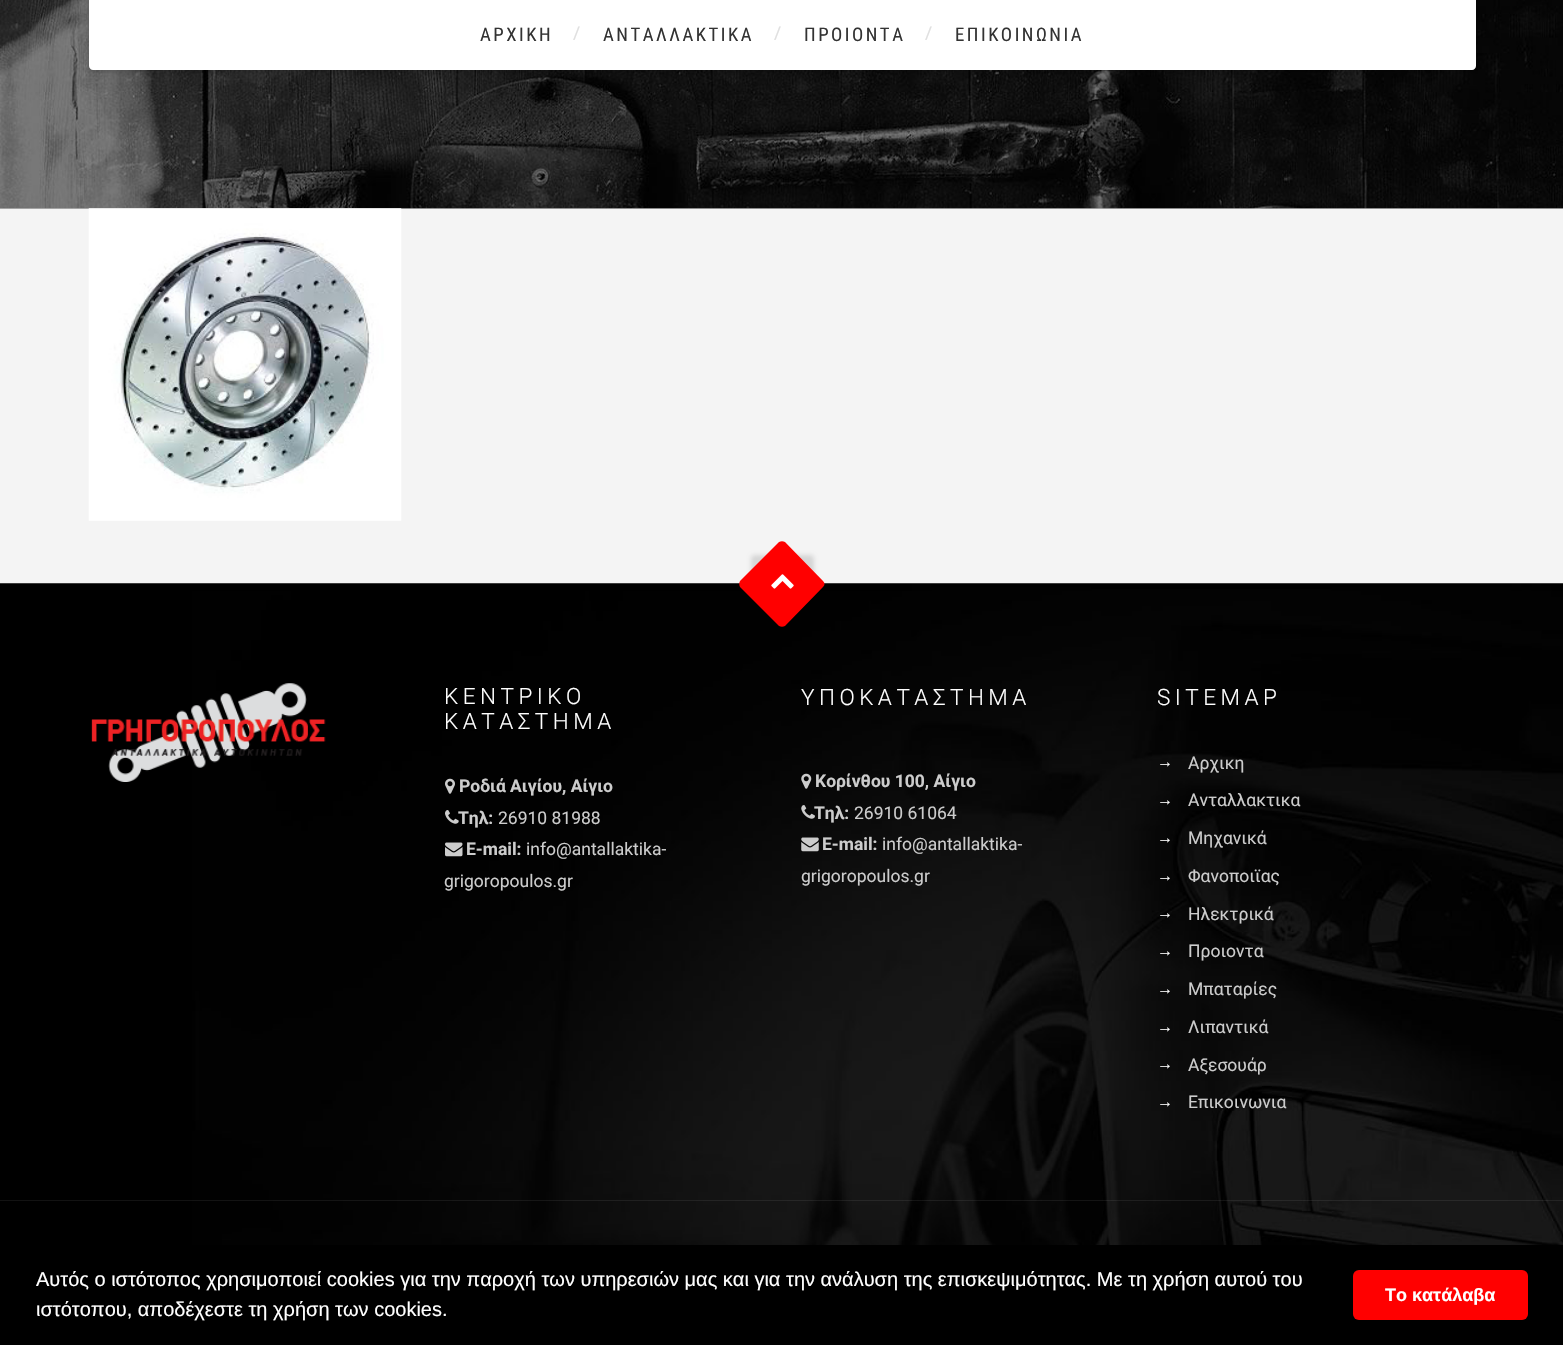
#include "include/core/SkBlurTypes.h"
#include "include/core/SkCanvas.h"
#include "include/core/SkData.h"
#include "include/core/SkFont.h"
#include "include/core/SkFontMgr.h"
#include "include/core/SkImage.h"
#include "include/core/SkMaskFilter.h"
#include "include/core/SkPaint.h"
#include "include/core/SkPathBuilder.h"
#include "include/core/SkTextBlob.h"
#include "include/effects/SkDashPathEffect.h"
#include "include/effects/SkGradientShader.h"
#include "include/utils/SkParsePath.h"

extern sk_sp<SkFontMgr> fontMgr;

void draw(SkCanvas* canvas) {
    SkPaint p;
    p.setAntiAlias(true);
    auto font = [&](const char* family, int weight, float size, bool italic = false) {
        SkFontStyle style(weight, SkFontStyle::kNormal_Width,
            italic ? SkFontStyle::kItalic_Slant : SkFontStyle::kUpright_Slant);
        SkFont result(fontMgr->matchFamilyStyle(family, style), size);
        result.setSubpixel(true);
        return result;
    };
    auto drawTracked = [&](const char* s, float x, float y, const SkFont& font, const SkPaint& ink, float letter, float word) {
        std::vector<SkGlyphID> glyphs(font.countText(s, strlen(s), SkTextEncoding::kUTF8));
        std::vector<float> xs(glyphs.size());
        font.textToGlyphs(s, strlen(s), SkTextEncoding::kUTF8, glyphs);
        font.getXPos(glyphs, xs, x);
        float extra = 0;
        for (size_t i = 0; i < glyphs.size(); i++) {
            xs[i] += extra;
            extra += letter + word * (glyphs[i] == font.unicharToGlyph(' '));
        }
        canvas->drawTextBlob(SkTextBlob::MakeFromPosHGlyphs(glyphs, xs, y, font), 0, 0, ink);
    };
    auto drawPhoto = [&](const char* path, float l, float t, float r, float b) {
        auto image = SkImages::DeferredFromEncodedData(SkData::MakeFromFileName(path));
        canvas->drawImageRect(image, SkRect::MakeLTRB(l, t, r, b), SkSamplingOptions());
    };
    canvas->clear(0xFFF4F4F4);
    p.setColor(0xFFCCCCCC);
    canvas->drawRect(SkRect::MakeLTRB(0, 208, 1563, 209), p);
    drawPhoto("media/1.png", 0, 0, 1563, 209);
    p.setColor(0x1A000000);
    canvas->drawRect(SkRect::MakeLTRB(0, 208, 1563, 209), p);
    drawPhoto("media/2.png", 88, 208, 402, 521);
    p.setColor(0x1F000000);
    p.setMaskFilter(SkMaskFilter::MakeBlur(kNormal_SkBlurStyle, 2));
    canvas->drawRoundRect(SkRect::MakeLTRB(89, 3, 1476, 73), 4, 4, p);
    p.setMaskFilter(nullptr);
    p.setColor(0xFFFFFFFF);
    canvas->drawPath(SkPathBuilder().moveTo(89, 0).lineTo(1476, 0).lineTo(1476, 66).cubicTo(1476, 68, 1474, 70, 1472, 70).lineTo(93, 70).cubicTo(91, 70, 89, 68, 89, 66).close().detach(), p);
    auto font1 = font("Roboto Condensed", 400, 18.75f);
    p.setColor(0xFF333333);
    drawTracked("ΑΡΧΙΚΗ", 480, 41, font1, p, 2.5f, 0);
    auto font2 = font("Roboto", 400, 17.5f);
    p.setColor(0xFFE0E0E0);
    canvas->drawString("/", 573, 39, font2, p);
    p.setColor(0xFF333333);
    drawTracked("ΑΝΤΑΛΛΑΚΤΙΚΑ", 603, 41, font1, p, 2.5f, 0);
    p.setColor(0xFFE0E0E0);
    canvas->drawString("/", 774, 39, font2, p);
    p.setColor(0xFF333333);
    drawTracked("ΠΡΟΙΟΝΤΑ", 804, 41, font1, p, 2.5f, 0);
    p.setColor(0xFFE0E0E0);
    canvas->drawString("/", 925, 39, font2, p);
    p.setColor(0xFF333333);
    drawTracked("ΕΠΙΚΟΙΝΩΝΙΑ", 955, 41, font1, p, 2.5f, 0);
    drawPhoto("media/3.png", 0, 583, 1563, 1245);
    p.setColor(0x1F000000);
    p.setMaskFilter(SkMaskFilter::MakeBlur(kNormal_SkBlurStyle, 2));
    canvas->drawRoundRect(SkRect::MakeLTRB(751, 555, 814, 618), 4, 4, p);
    p.setMaskFilter(nullptr);
    p.setColor(0xFFFF0000);
    canvas->drawPath(SkPathBuilder().moveTo(785, 542).lineTo(823, 581).cubicTo(825, 583, 825, 585, 823, 587).lineTo(785, 626).cubicTo(783, 627, 781, 627, 779, 626).lineTo(740, 587).cubicTo(739, 585, 739, 583, 740, 581).lineTo(779, 542).cubicTo(781, 541, 783, 541, 785, 542).close().detach(), p);
    drawPhoto("media/4.png", 771, 574, 794, 589);
    drawPhoto("media/5.png", 91, 683, 326, 782);
    auto font3 = font("Roboto", 300, 22.5f);
    p.setColor(0xFFFFFFFF);
    drawTracked("ΚΕΝΤΡΙΚO", 444, 704, font3, p, 4.5f, 0);
    drawTracked("ΚΑΤAΣΤΗΜΑ", 444, 729, font3, p, 4.5f, 0);
    drawPhoto("media/6.png", 445, 778, 455, 794);
    auto font4 = font("Roboto", 700, 17.5f);
    p.setColor(0xFFCCCCCC);
    canvas->drawString("Ροδιά Αιγίου, Αίγιο", 459, 792, font4, p);
    canvas->drawString("Τηλ:", 458, 824, font4, p);
    drawPhoto("media/7.png", 445, 810, 459, 824);
    canvas->drawString("26910 81988", 498, 824, font2, p);
    drawPhoto("media/8.png", 445, 842, 463, 857);
    canvas->drawString("E-mail:", 466, 855, font4, p);
    canvas->drawString("info@antallaktika-", 526, 855, font2, p);
    canvas->drawString("grigoropoulos.gr", 444, 887, font2, p);
    p.setColor(0xFFFFFFFF);
    drawTracked("ΥΠΟΚΑΤΑΣΤΗΜΑ", 801, 705, font3, p, 4.5f, 0);
    drawPhoto("media/9.png", 801, 773, 812, 789);
    p.setColor(0xFFCCCCCC);
    canvas->drawString("Κορίνθου 100, Αίγιο", 815, 787, font4, p);
    canvas->drawString("Τηλ:", 814, 819, font4, p);
    drawPhoto("media/10.png", 801, 805, 815, 819);
    canvas->drawString("26910 61064", 854, 819, font2, p);
    drawPhoto("media/11.png", 801, 837, 819, 852);
    canvas->drawString("E-mail:", 822, 850, font4, p);
    canvas->drawString("info@antallaktika-", 882, 850, font2, p);
    canvas->drawString("grigoropoulos.gr", 801, 882, font2, p);
    p.setColor(0xFFFFFFFF);
    drawTracked("SITEMAP", 1157, 705, font3, p, 4.5f, 0);
    auto font5 = font("Liberation Serif", 400, 16);
    canvas->drawString("→", 1157, 767, font5, p);
    p.setColor(0xFFCCCCCC);
    canvas->drawString("Αρχικη", 1188, 769, font2, p);
    p.setColor(0xFFFFFFFF);
    canvas->drawString("→", 1157, 805, font5, p);
    p.setColor(0xFFCCCCCC);
    canvas->drawString("Ανταλλακτικα", 1188, 806, font2, p);
    p.setColor(0xFFFFFFFF);
    canvas->drawString("→", 1157, 843, font5, p);
    p.setColor(0xFFCCCCCC);
    canvas->drawString("Μηχανικά", 1188, 844, font2, p);
    p.setColor(0xFFFFFFFF);
    canvas->drawString("→", 1157, 881, font5, p);
    p.setColor(0xFFCCCCCC);
    canvas->drawString("Φανοποιϊας", 1188, 882, font2, p);
    p.setColor(0xFFFFFFFF);
    canvas->drawString("→", 1157, 918, font5, p);
    p.setColor(0xFFCCCCCC);
    canvas->drawString("Ηλεκτρικά", 1188, 920, font2, p);
    p.setColor(0xFFFFFFFF);
    canvas->drawString("→", 1157, 956, font5, p);
    p.setColor(0xFFCCCCCC);
    canvas->drawString("Προιοντα", 1188, 957, font2, p);
    p.setColor(0xFFFFFFFF);
    canvas->drawString("→", 1157, 994, font5, p);
    p.setColor(0xFFCCCCCC);
    canvas->drawString("Μπαταρίες", 1188, 995, font2, p);
    p.setColor(0xFFFFFFFF);
    canvas->drawString("→", 1157, 1032, font5, p);
    p.setColor(0xFFCCCCCC);
    canvas->drawString("Λιπαντικά", 1188, 1033, font2, p);
    p.setColor(0xFFFFFFFF);
    canvas->drawString("→", 1157, 1069, font5, p);
    p.setColor(0xFFCCCCCC);
    canvas->drawString("Αξεσουάρ", 1188, 1071, font2, p);
    p.setColor(0xFFFFFFFF);
    canvas->drawString("→", 1157, 1107, font5, p);
    p.setColor(0xFFCCCCCC);
    canvas->drawString("Επικοινωνια", 1188, 1108, font2, p);
    p.setColor(0x12FFFFFF);
    canvas->drawRect(SkRect::MakeLTRB(0, 1200, 1563, 1201), p);
    p.setColor(0xFF000000);
    canvas->drawRect(SkRect::MakeLTRB(0, 1245, 1563, 1345), p);
    auto font6 = font("Liberation Sans", 400, 20);
    p.setColor(0xFFFFFFFF);
    canvas->drawString("Αυτός ο ιστότοπος χρησιμοποιεί cookies για την παροχή των υπηρεσιών μας και για την ανάλυση της επισκεψιμότητας. Με τη χρήση αυτού του", 36, 1286, font6, p);
    canvas->drawString("ιστότοπου, αποδέχεστε τη χρήση των cookies.", 36, 1316, font6, p);
    p.setColor(0xFFFF0000);
    canvas->drawRoundRect(SkRect::MakeLTRB(1353, 1270, 1528, 1320), 6, 6, p);
    auto font7 = font("Liberation Sans", 700, 18);
    p.setColor(0xFFFFFFFF);
    canvas->drawString("Το κατάλαβα", 1385, 1301, font7, p);
}
